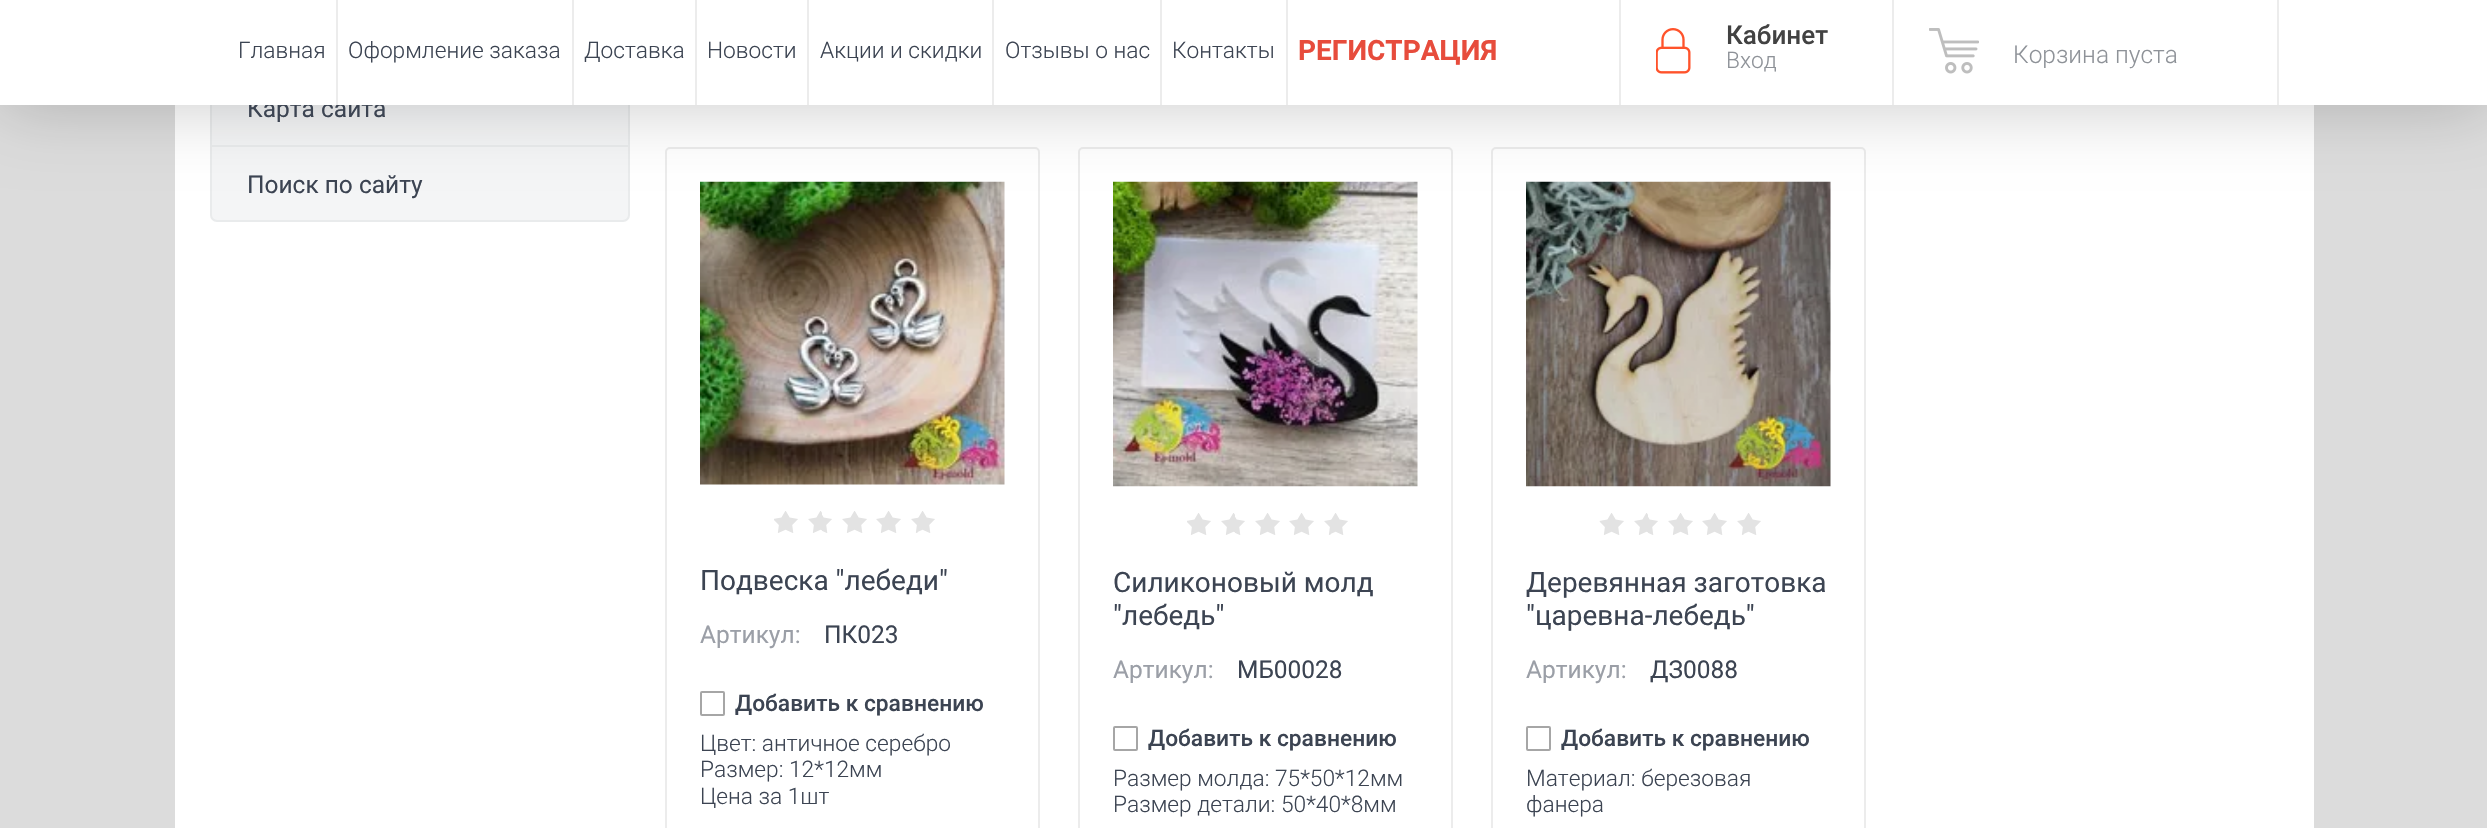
#include "include/core/SkBlurTypes.h"
#include "include/core/SkCanvas.h"
#include "include/core/SkData.h"
#include "include/core/SkFont.h"
#include "include/core/SkFontMgr.h"
#include "include/core/SkImage.h"
#include "include/core/SkMaskFilter.h"
#include "include/core/SkPaint.h"
#include "include/core/SkPathBuilder.h"
#include "include/core/SkTextBlob.h"
#include "include/effects/SkDashPathEffect.h"
#include "include/effects/SkGradientShader.h"
#include "include/utils/SkParsePath.h"

extern sk_sp<SkFontMgr> fontMgr;

void draw(SkCanvas* canvas) {
    SkPaint p;
    p.setAntiAlias(true);
    auto font = [&](const char* family, int weight, float size, bool italic = false) {
        SkFontStyle style(weight, SkFontStyle::kNormal_Width,
            italic ? SkFontStyle::kItalic_Slant : SkFontStyle::kUpright_Slant);
        SkFont result(fontMgr->matchFamilyStyle(family, style), size);
        result.setSubpixel(true);
        return result;
    };
    auto drawPhoto = [&](const char* path, float l, float t, float r, float b) {
        auto image = SkImages::DeferredFromEncodedData(SkData::MakeFromFileName(path));
        canvas->drawImageRect(image, SkRect::MakeLTRB(l, t, r, b), SkSamplingOptions());
    };
    canvas->clear(0xFFDCDCDC);
    p.setColor(0xFFFFFFFF);
    canvas->drawRect(SkRect::MakeLTRB(175, 105, 2314, 828), p);
    p.setColor(0xFFF4F5F6);
    canvas->drawRoundRect(SkRect::MakeLTRB(211, 71, 629, 221), 6, 6, p);
    p.setStyle(SkPaint::kStroke_Style);
    p.setStrokeWidth(2);
    p.setColor(0xFFE9EBEC);
    canvas->drawRoundRect(SkRect::MakeLTRB(211, 71, 629, 221), 6, 6, p);
    p.setStyle(SkPaint::kFill_Style);
    canvas->drawRect(SkRect::MakeLTRB(212, 145, 628, 147), p);
    p.setStyle(SkPaint::kStroke_Style);
    p.setColor(0xFFECECEC);
    canvas->drawRoundRect(SkRect::MakeLTRB(666, 148, 1039, 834), 4, 4, p);
    drawPhoto("media/3.png", 700, 181, 1005, 485);
    canvas->drawRoundRect(SkRect::MakeLTRB(1079, 148, 1452, 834), 4, 4, p);
    drawPhoto("media/5.png", 1113, 181, 1418, 487);
    canvas->drawRoundRect(SkRect::MakeLTRB(1492, 148, 1865, 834), 4, 4, p);
    drawPhoto("media/6.png", 1526, 181, 1831, 487);
    p.setStyle(SkPaint::kFill_Style);
    p.setColor(0x33000000);
    p.setMaskFilter(SkMaskFilter::MakeBlur(kNormal_SkBlurStyle, 35));
    canvas->drawRect(SkRect::MakeLTRB(0, 2, 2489, 107), p);
    p.setMaskFilter(nullptr);
    auto font1 = font("Roboto", 400, 24.5f);
    p.setColor(0xFF3C4452);
    canvas->drawString("Карта сайта", 247, 117, font1, p);
    p.setColor(0xFFFFFFFF);
    canvas->drawRect(SkRect::MakeLTRB(0, 0, 2487, 105), p);
    auto font2 = font("Roboto", 300, 22.75f);
    p.setColor(0xFF3C4452);
    canvas->drawString("Главная", 238, 58, font2, p);
    p.setColor(0xFFECECEC);
    canvas->drawRect(SkRect::MakeLTRB(336, 0, 338, 105), p);
    p.setColor(0xFF3C4452);
    canvas->drawString("Оформление заказа", 348, 58, font2, p);
    p.setColor(0xFFECECEC);
    canvas->drawRect(SkRect::MakeLTRB(572, 0, 574, 105), p);
    p.setColor(0xFF3C4452);
    canvas->drawString("Доставка", 584, 58, font2, p);
    p.setColor(0xFFECECEC);
    canvas->drawRect(SkRect::MakeLTRB(695, 0, 697, 105), p);
    p.setColor(0xFF3C4452);
    canvas->drawString("Новости", 707, 58, font2, p);
    p.setColor(0xFFECECEC);
    canvas->drawRect(SkRect::MakeLTRB(807, 0, 809, 105), p);
    p.setColor(0xFF3C4452);
    canvas->drawString("Акции и скидки", 820, 58, font2, p);
    p.setColor(0xFFECECEC);
    canvas->drawRect(SkRect::MakeLTRB(992, 0, 994, 105), p);
    p.setColor(0xFF3C4452);
    canvas->drawString("Отзывы о нас", 1005, 58, font2, p);
    p.setColor(0xFFECECEC);
    canvas->drawRect(SkRect::MakeLTRB(1160, 0, 1162, 105), p);
    p.setColor(0xFF3C4452);
    canvas->drawString("Контакты", 1172, 58, font2, p);
    p.setColor(0xFFECECEC);
    canvas->drawRect(SkRect::MakeLTRB(1286, 0, 1288, 105), p);
    auto font3 = font("Roboto", 700, 28);
    p.setColor(0xFFE74C3C);
    canvas->drawString("РЕГИСТРАЦИЯ", 1298, 60, font3, p);
    p.setColor(0xFFECECEC);
    canvas->drawRect(SkRect::MakeLTRB(1619, 0, 1621, 105), p);
    canvas->drawRect(SkRect::MakeLTRB(1892, 0, 1894, 105), p);
    drawPhoto("media/1.png", 1656, 28, 1691, 74);
    auto font4 = font("Roboto", 500, 26);
    p.setColor(0xFF424242);
    canvas->drawString("Кабинет", 1726, 44, font4, p);
    p.setColor(0xFF8E9298);
    canvas->drawString("Вход", 1726, 68, font2, p);
    p.setColor(0xFFECECEC);
    canvas->drawRect(SkRect::MakeLTRB(2277, 0, 2279, 105), p);
    drawPhoto("media/2.png", 1929, 28, 1979, 74);
    auto font5 = font("Roboto", 300, 24.5f);
    p.setColor(0xFF8E9298);
    canvas->drawString("Корзина пуста", 2013, 63, font5, p);
    p.setColor(0xFF3C4452);
    canvas->drawString("Поиск по сайту", 247, 193, font1, p);
    drawPhoto("media/4.png", 774, 511, 935, 533);
    auto font6 = font("Roboto", 400, 28);
    canvas->drawString("Подвеска \"лебеди\"", 700, 590, font6, p);
    p.setColor(0xFF9B9FA7);
    canvas->drawString("Артикул:", 700, 643, font1, p);
    p.setColor(0xFF3C4452);
    canvas->drawString("ПК023", 824, 643, font1, p);
    p.setStyle(SkPaint::kStroke_Style);
    p.setColor(0xFFA6A6A6);
    canvas->drawRoundRect(SkRect::MakeLTRB(701, 692, 724, 715), 1, 1, p);
    auto font7 = font("Roboto", 500, 22.75f);
    p.setStyle(SkPaint::kFill_Style);
    p.setColor(0xFF3C4452);
    canvas->drawString("Добавить к сравнению", 735, 711, font7, p);
    {
        const struct { const char* s; float x, y; } items[] = {
            {"Цвет: античное серебро", 700, 751},
            {"Размер: 12*12мм", 700, 777},
            {"Цена за 1шт", 700, 804},
        };
        for (auto [s, x, y] : items) {
            canvas->drawString(s, x, y, font2, p);
        }
    }
    drawPhoto("media/4.png", 1187, 513, 1348, 535);
    canvas->drawString("Силиконовый молд", 1113, 592, font6, p);
    canvas->drawString("\"лебедь\"", 1113, 625, font6, p);
    p.setColor(0xFF9B9FA7);
    canvas->drawString("Артикул:", 1113, 678, font1, p);
    p.setColor(0xFF3C4452);
    canvas->drawString("МБ00028", 1237, 678, font1, p);
    p.setStyle(SkPaint::kStroke_Style);
    p.setColor(0xFFA6A6A6);
    canvas->drawRoundRect(SkRect::MakeLTRB(1114, 727, 1137, 750), 1, 1, p);
    p.setStyle(SkPaint::kFill_Style);
    p.setColor(0xFF3C4452);
    canvas->drawString("Добавить к сравнению", 1148, 746, font7, p);
    canvas->drawString("Размер молда: 75*50*12мм", 1113, 786, font2, p);
    canvas->drawString("Размер детали: 50*40*8мм", 1113, 812, font2, p);
    drawPhoto("media/7.png", 1599, 513, 1761, 535);
    canvas->drawString("Деревянная заготовка", 1526, 592, font6, p);
    canvas->drawString("\"царевна-лебедь\"", 1526, 625, font6, p);
    p.setColor(0xFF9B9FA7);
    canvas->drawString("Артикул:", 1526, 678, font1, p);
    p.setColor(0xFF3C4452);
    canvas->drawString("ДЗ0088", 1650, 678, font1, p);
    p.setStyle(SkPaint::kStroke_Style);
    p.setColor(0xFFA6A6A6);
    canvas->drawRoundRect(SkRect::MakeLTRB(1527, 727, 1550, 750), 1, 1, p);
    p.setStyle(SkPaint::kFill_Style);
    p.setColor(0xFF3C4452);
    canvas->drawString("Добавить к сравнению", 1561, 746, font7, p);
    canvas->drawString("Материал: березовая", 1526, 786, font2, p);
    canvas->drawString("фанера", 1526, 812, font2, p);
}
